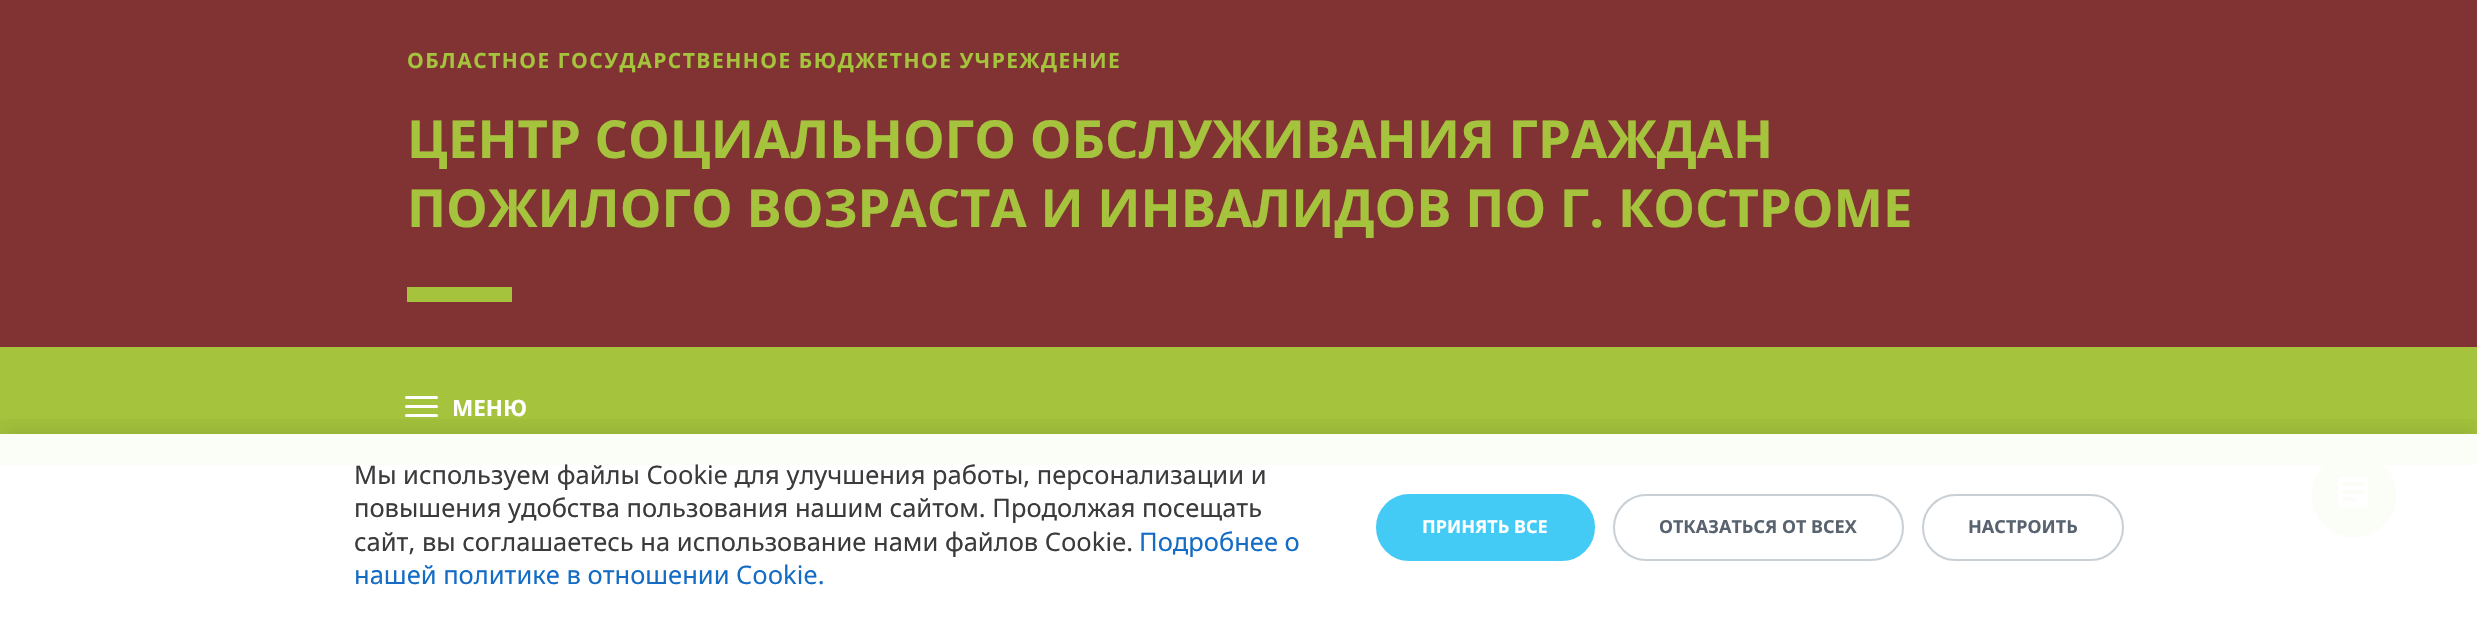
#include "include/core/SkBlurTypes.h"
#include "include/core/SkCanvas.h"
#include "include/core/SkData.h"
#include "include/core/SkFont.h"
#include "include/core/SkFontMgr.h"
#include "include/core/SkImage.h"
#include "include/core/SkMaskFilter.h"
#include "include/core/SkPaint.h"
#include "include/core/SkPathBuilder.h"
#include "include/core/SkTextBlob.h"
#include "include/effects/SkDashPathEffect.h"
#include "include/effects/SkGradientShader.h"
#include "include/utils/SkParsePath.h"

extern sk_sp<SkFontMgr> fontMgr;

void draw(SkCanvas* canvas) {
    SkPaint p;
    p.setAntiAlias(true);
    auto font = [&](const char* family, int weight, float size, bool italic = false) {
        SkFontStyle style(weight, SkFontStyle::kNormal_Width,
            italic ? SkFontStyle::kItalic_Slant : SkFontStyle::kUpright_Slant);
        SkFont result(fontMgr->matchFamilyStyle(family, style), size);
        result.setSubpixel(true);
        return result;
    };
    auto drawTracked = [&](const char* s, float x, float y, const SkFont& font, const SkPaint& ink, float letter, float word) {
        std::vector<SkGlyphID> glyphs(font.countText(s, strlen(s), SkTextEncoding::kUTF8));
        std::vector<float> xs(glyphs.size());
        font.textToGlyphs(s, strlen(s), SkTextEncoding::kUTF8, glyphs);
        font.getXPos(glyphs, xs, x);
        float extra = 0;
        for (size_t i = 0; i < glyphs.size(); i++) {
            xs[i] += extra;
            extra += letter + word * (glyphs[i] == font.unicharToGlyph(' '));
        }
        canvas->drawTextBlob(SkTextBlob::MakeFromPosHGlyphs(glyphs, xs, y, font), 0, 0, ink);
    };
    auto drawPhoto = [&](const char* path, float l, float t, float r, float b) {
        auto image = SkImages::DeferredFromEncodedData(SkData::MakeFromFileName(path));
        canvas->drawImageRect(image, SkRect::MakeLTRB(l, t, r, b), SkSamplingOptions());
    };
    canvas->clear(0xFFFFFFFF);
    p.setColor(0xFF813233);
    canvas->drawRect(SkRect::MakeLTRB(0, 0, 2477, 347), p);
    auto font1 = font("Open Sans", 700, 21);
    p.setColor(0xFFA5C33C);
    drawTracked("ОБЛАСТНОЕ ГОСУДАРСТВЕННОЕ БЮДЖЕТНОЕ УЧРЕЖДЕНИЕ", 407, 68, font1, p, 1.5f, 0);
    auto font2 = font("Open Sans", 700, 52.5f);
    canvas->drawString("ЦЕНТР СОЦИАЛЬНОГО ОБСЛУЖИВАНИЯ ГРАЖДАН", 407, 158, font2, p);
    canvas->drawString("ПОЖИЛОГО ВОЗРАСТА И ИНВАЛИДОВ ПО Г. КОСТРОМЕ", 407, 227, font2, p);
    {
        const struct { float l, t, r, b; SkColor color; } items[] = {
            {407, 287, 512, 302, 0xFFA5C33C},
            {0, 347, 2477, 434, 0xFFA5C33C},
            {0, 434, 2477, 465, 0xFFFBFDF7},
        };
        for (auto [l, t, r, b, color] : items) {
            p.setColor(color);
            canvas->drawRect(SkRect::MakeLTRB(l, t, r, b), p);
        }
    }
    p.setColor(0xFFFFFFFF);
    canvas->drawRoundRect(SkRect::MakeLTRB(405, 396, 438, 399), 1.5f, 1.5f, p);
    canvas->drawRoundRect(SkRect::MakeLTRB(405, 405, 438, 408), 1.5f, 1.5f, p);
    canvas->drawRoundRect(SkRect::MakeLTRB(405, 414, 438, 417), 1.5f, 1.5f, p);
    auto font3 = font("Open Sans", 700, 22.5f);
    canvas->drawString("МЕНЮ", 452, 416, font3, p);
    p.setStyle(SkPaint::kStroke_Style);
    p.setStrokeWidth(1);
    p.setColor(0xFFFBFDF7);
    canvas->drawCircle(2354, 495, 41.5f, p);
    p.setStyle(SkPaint::kFill_Style);
    canvas->drawCircle(2354, 495, 42, p);
    drawPhoto("media/1.png", 2338, 477, 2369, 508);
    canvas->save();
    canvas->clipRect(SkRect::MakeLTRB(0, 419, 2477, 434));
    p.setColor(0x1A000000);
    p.setMaskFilter(SkMaskFilter::MakeBlur(kNormal_SkBlurStyle, 10.5f));
    canvas->drawRect(SkRect::MakeLTRB(0, 428, 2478, 614), p);
    p.setMaskFilter(nullptr);
    canvas->restore();
    auto font4 = font("Noto Sans", 400, 25.5f);
    p.setColor(0xFF3B3B3B);
    {
        const struct { const char* s; float x, y; } items[] = {
            {"Мы используем файлы Cookie для улучшения работы, персонализации и", 354, 484},
            {"повышения удобства пользования нашим сайтом. Продолжая посещать", 354, 517},
            {"сайт, вы соглашаетесь на использование нами файлов Cookie.", 354, 551},
        };
        for (auto [s, x, y] : items) {
            canvas->drawString(s, x, y, font4, p);
        }
    }
    p.setColor(0xFF156CC5);
    canvas->drawString("Подробнее о", 1139, 551, font4, p);
    canvas->drawString("нашей политике в отношении Cookie.", 354, 584, font4, p);
    p.setColor(0xFF43CAF5);
    canvas->drawRoundRect(SkRect::MakeLTRB(1377, 495, 1594, 560), 32.5f, 32.5f, p);
    p.setStyle(SkPaint::kStroke_Style);
    p.setStrokeWidth(2);
    canvas->drawRoundRect(SkRect::MakeLTRB(1377, 495, 1594, 560), 32.5f, 32.5f, p);
    auto font5 = font("Noto Sans", 700, 18);
    p.setStyle(SkPaint::kFill_Style);
    p.setColor(0xFFFFFFFF);
    canvas->drawString("ПРИНЯТЬ ВСЕ", 1422, 533, font5, p);
    p.setStyle(SkPaint::kStroke_Style);
    p.setColor(0xFFC8CFD5);
    canvas->drawRoundRect(SkRect::MakeLTRB(1614, 495, 1903, 560), 32.5f, 32.5f, p);
    p.setStyle(SkPaint::kFill_Style);
    p.setColor(0xFF59636F);
    canvas->drawString("ОТКАЗАТЬСЯ ОТ ВСЕХ", 1659, 533, font5, p);
    p.setStyle(SkPaint::kStroke_Style);
    p.setColor(0xFFC8CFD5);
    canvas->drawRoundRect(SkRect::MakeLTRB(1923, 495, 2123, 560), 32.5f, 32.5f, p);
    p.setStyle(SkPaint::kFill_Style);
    p.setColor(0xFF59636F);
    canvas->drawString("НАСТРОИТЬ", 1968, 533, font5, p);
}
